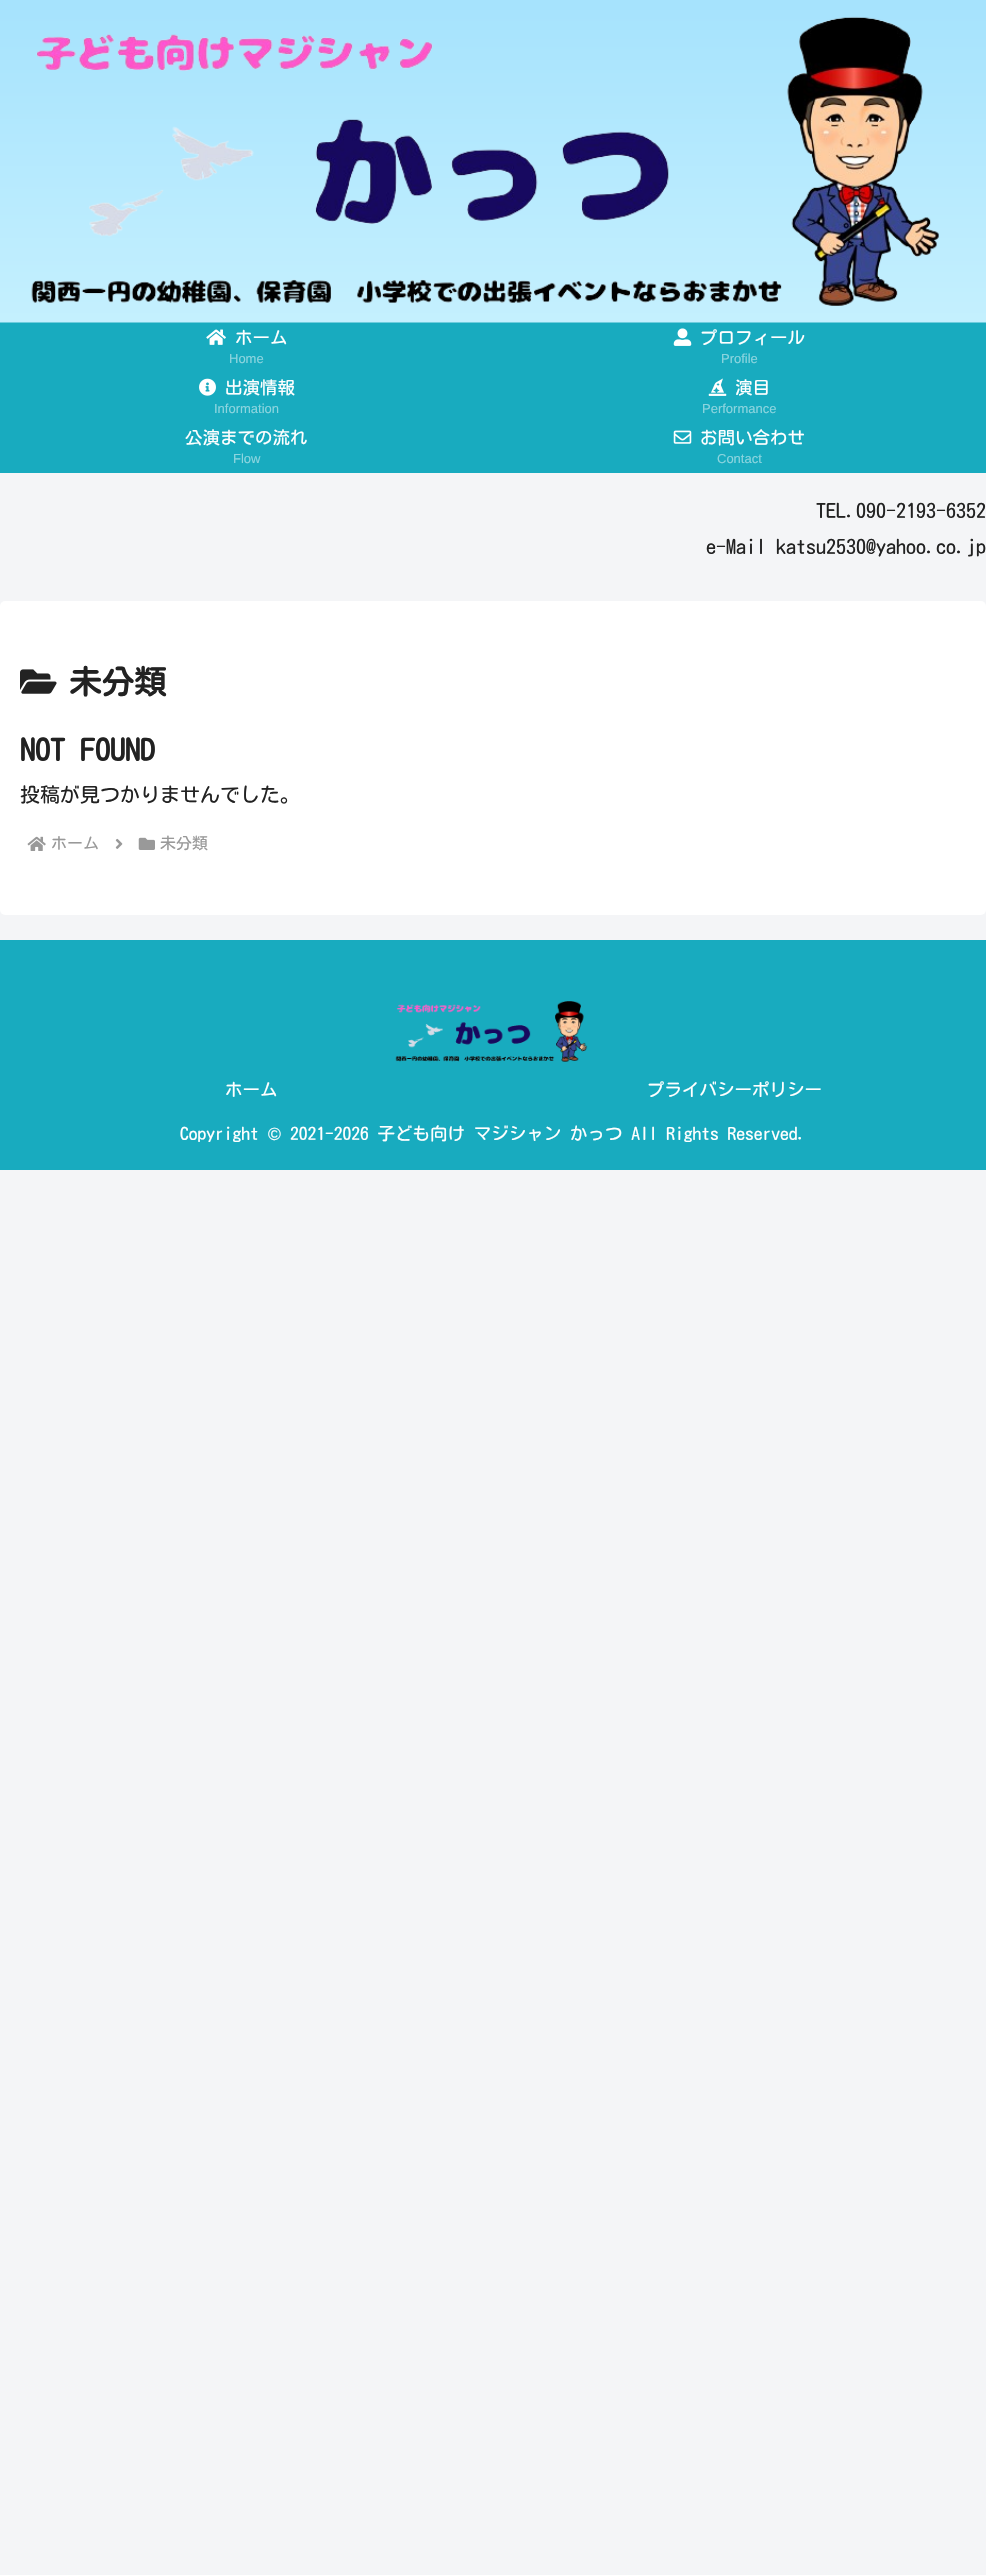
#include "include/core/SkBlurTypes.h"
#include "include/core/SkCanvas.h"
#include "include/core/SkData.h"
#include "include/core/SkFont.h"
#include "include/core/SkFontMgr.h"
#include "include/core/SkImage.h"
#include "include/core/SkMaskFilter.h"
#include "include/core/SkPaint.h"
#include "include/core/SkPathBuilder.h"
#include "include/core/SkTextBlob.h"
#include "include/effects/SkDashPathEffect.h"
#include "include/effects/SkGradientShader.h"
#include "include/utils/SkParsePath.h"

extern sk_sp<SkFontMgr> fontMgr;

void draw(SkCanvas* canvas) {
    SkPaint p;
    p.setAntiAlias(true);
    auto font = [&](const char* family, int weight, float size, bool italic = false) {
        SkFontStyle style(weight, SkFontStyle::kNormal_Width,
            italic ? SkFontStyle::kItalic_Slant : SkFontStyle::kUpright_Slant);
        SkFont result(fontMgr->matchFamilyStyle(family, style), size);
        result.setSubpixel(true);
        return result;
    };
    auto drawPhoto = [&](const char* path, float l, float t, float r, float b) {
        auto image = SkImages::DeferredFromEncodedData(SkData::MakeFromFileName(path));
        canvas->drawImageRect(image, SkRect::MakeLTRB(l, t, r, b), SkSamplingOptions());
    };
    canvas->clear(0xFFF4F5F7);
    p.setColor(0xFF18ABBF);
    canvas->drawRect(SkRect::MakeLTRB(0, 322, 986, 473), p);
    drawPhoto("media/1.png", 0, 0, 986, 323);
    drawPhoto("media/2.png", 31, 16, 939, 306);
    drawPhoto("media/3.png", 206, 329, 226, 345);
    auto font1 = font("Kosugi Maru", 400, 17.5f);
    p.setColor(0xFFFFFFFF);
    canvas->drawString("ホーム", 235, 344, font1, p);
    auto font2 = font("Liberation Sans", 400, 13);
    p.setColor(0xFF8CD5DF);
    canvas->drawString("Home", 229, 363, font2, p);
    drawPhoto("media/4.png", 673, 328, 692, 346);
    p.setColor(0xFFFFFFFF);
    canvas->drawString("プロフィール", 700, 344, font1, p);
    p.setColor(0xFF8CD5DF);
    canvas->drawString("Profile", 721, 363, font2, p);
    drawPhoto("media/5.png", 199, 378, 216, 396);
    p.setColor(0xFFFFFFFF);
    canvas->drawString("出演情報", 225, 394, font1, p);
    p.setColor(0xFF8CD5DF);
    canvas->drawString("Information", 214, 413, font2, p);
    drawPhoto("media/6.png", 708, 378, 727, 396);
    p.setColor(0xFFFFFFFF);
    canvas->drawString("演目", 735, 394, font1, p);
    p.setColor(0xFF8CD5DF);
    canvas->drawString("Performance", 702, 413, font2, p);
    p.setColor(0xFFFFFFFF);
    canvas->drawString("公演までの流れ", 185, 444, font1, p);
    p.setColor(0xFF8CD5DF);
    canvas->drawString("Flow", 233, 463, font2, p);
    drawPhoto("media/7.png", 673, 430, 692, 444);
    p.setColor(0xFFFFFFFF);
    canvas->drawString("お問い合わせ", 700, 444, font1, p);
    p.setColor(0xFF8CD5DF);
    canvas->drawString("Contact", 717, 463, font2, p);
    auto font3 = font("Kosugi Maru", 400, 20);
    p.setColor(0xFF222222);
    canvas->drawString("TEL.090-2193-6352", 816, 518, font3, p);
    canvas->drawString("e-Mail katsu2530@yahoo.co.jp", 706, 554, font3, p);
    p.setColor(0xFFFFFFFF);
    canvas->drawRoundRect(SkRect::MakeLTRB(0, 601, 986, 915), 5, 5, p);
    drawPhoto("media/8.png", 20, 669, 57, 694);
    auto font4 = font("Kosugi Maru", 700, 32.5f);
    p.setColor(0xFF222222);
    canvas->drawString("未分類", 69, 694, font4, p);
    auto font5 = font("Kosugi Maru", 700, 30);
    canvas->drawString("NOT FOUND", 20, 761, font5, p);
    canvas->drawString("投稿が見つかりませんでした。", 20, 802, font3, p);
    drawPhoto("media/9.png", 27, 836, 46, 851);
    auto font6 = font("Kosugi Maru", 400, 16);
    p.setColor(0xFF999999);
    canvas->drawString("ホーム", 51, 849, font6, p);
    drawPhoto("media/10.png", 115, 838, 123, 849);
    drawPhoto("media/11.png", 138, 837, 155, 850);
    canvas->drawString("未分類", 160, 849, font6, p);
    p.setColor(0xFF18ABBF);
    canvas->drawRect(SkRect::MakeLTRB(0, 940, 986, 1170), p);
    drawPhoto("media/12.png", 395, 1001, 588, 1062);
    p.setColor(0xFFFFFFFF);
    {
        const struct { const char* s; float x, y; } items[] = {
            {"ホーム", 225, 1096},
            {"プライバシーポリシー", 647, 1096},
            {"Copyright", 180, 1140},
        };
        for (auto [s, x, y] : items) {
            canvas->drawString(s, x, y, font1, p);
        }
    }
    auto font7 = font("Liberation Sans", 400, 17.5f);
    canvas->drawString("©", 268, 1140, font7, p);
    canvas->drawString("2021-2026 子ども向け マジシャン かっつ All Rights Reserved.", 290, 1140, font1, p);
}
